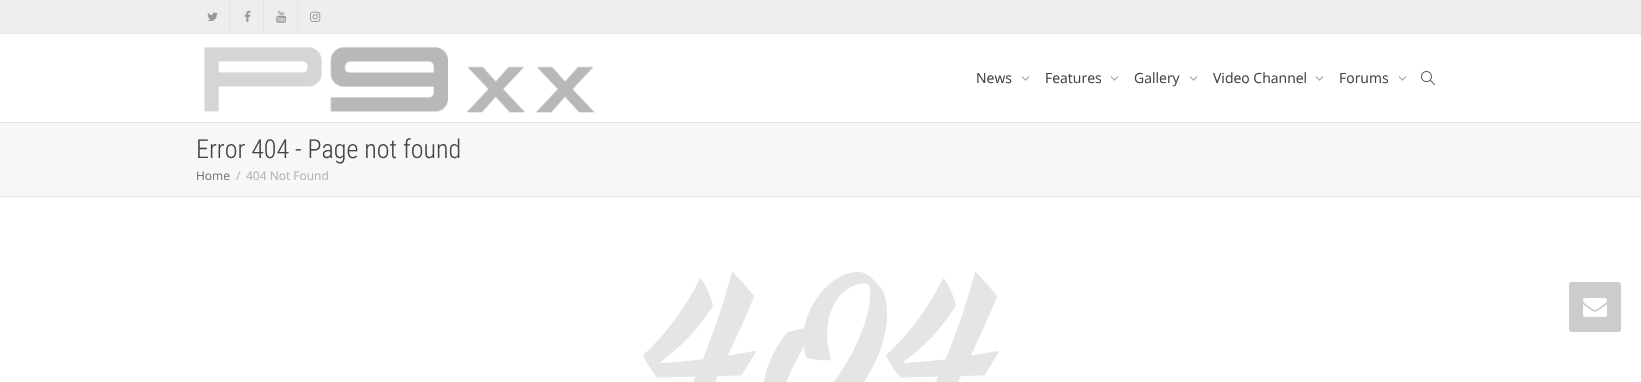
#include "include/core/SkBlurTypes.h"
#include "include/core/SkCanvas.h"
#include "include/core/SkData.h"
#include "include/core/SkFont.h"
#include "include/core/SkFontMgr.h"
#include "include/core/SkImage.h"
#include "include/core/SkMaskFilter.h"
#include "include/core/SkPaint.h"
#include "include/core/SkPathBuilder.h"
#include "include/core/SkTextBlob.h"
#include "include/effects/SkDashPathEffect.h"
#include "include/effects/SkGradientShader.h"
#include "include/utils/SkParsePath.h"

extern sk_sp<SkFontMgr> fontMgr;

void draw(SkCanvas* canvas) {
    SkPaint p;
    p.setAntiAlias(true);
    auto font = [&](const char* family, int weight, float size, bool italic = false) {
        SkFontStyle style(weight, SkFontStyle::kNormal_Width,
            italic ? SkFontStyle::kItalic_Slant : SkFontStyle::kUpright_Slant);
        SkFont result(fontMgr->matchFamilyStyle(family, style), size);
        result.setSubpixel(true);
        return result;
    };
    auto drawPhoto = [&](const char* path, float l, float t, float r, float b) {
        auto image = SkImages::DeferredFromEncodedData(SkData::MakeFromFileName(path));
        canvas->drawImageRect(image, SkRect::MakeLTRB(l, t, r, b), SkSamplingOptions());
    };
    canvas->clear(0xFFFFFFFF);
    {
        const struct { float l, t, r, b; SkColor color; } items[] = {
            {0, 0, 1641, 33, 0xFFEEEEEE},
            {0, 33, 1641, 34, 0xFFE5E5E5},
            {229, 0, 230, 33, 0xFFE5E5E5},
        };
        for (auto [l, t, r, b, color] : items) {
            p.setColor(color);
            canvas->drawRect(SkRect::MakeLTRB(l, t, r, b), p);
        }
    }
    drawPhoto("media/1.png", 207, 12, 218, 21);
    canvas->drawRect(SkRect::MakeLTRB(263, 0, 264, 33), p);
    drawPhoto("media/2.png", 244, 10, 251, 22);
    canvas->drawRect(SkRect::MakeLTRB(297, 0, 298, 33), p);
    drawPhoto("media/3.png", 276, 10, 287, 23);
    drawPhoto("media/4.png", 310, 11, 321, 22);
    canvas->drawRect(SkRect::MakeLTRB(0, 122, 1641, 123), p);
    drawPhoto("media/5.png", 204, 47, 595, 113);
    auto font1 = font("Open Sans", 400, 14);
    p.setColor(0xFF444444);
    canvas->drawString("News", 976, 83, font1, p);
    drawPhoto("media/6.png", 1021, 76, 1030, 81);
    canvas->drawString("Features", 1045, 83, font1, p);
    drawPhoto("media/6.png", 1110, 76, 1119, 81);
    canvas->drawString("Gallery", 1134, 83, font1, p);
    drawPhoto("media/6.png", 1189, 76, 1198, 81);
    canvas->drawString("Video Channel", 1213, 83, font1, p);
    drawPhoto("media/6.png", 1315, 76, 1324, 81);
    canvas->drawString("Forums", 1339, 83, font1, p);
    drawPhoto("media/6.png", 1398, 76, 1407, 81);
    drawPhoto("media/7.png", 1421, 71, 1435, 86);
    p.setColor(0xFFF7F7F7);
    canvas->drawRect(SkRect::MakeLTRB(0, 123, 1641, 196), p);
    p.setColor(0xFFE5E5E5);
    canvas->drawRect(SkRect::MakeLTRB(0, 196, 1641, 197), p);
    auto font2 = font("Roboto Condensed", 300, 26);
    p.setColor(0xFF444444);
    canvas->drawString("Error 404 - Page not found", 196, 158, font2, p);
    auto font3 = font("Open Sans", 400, 12);
    p.setColor(0xFF777777);
    canvas->drawString("Home", 196, 180, font3, p);
    p.setColor(0xFFB3B3B3);
    canvas->drawString("/", 236, 180, font3, p);
    canvas->drawString("404 Not Found", 246, 180, font3, p);
    drawPhoto("media/8.png", 643, 271, 999, 382);
    p.setColor(0xFFCCCCCC);
    canvas->drawRoundRect(SkRect::MakeLTRB(1569, 282, 1621, 332), 3, 3, p);
    drawPhoto("media/9.png", 1583, 298, 1607, 317);
}
